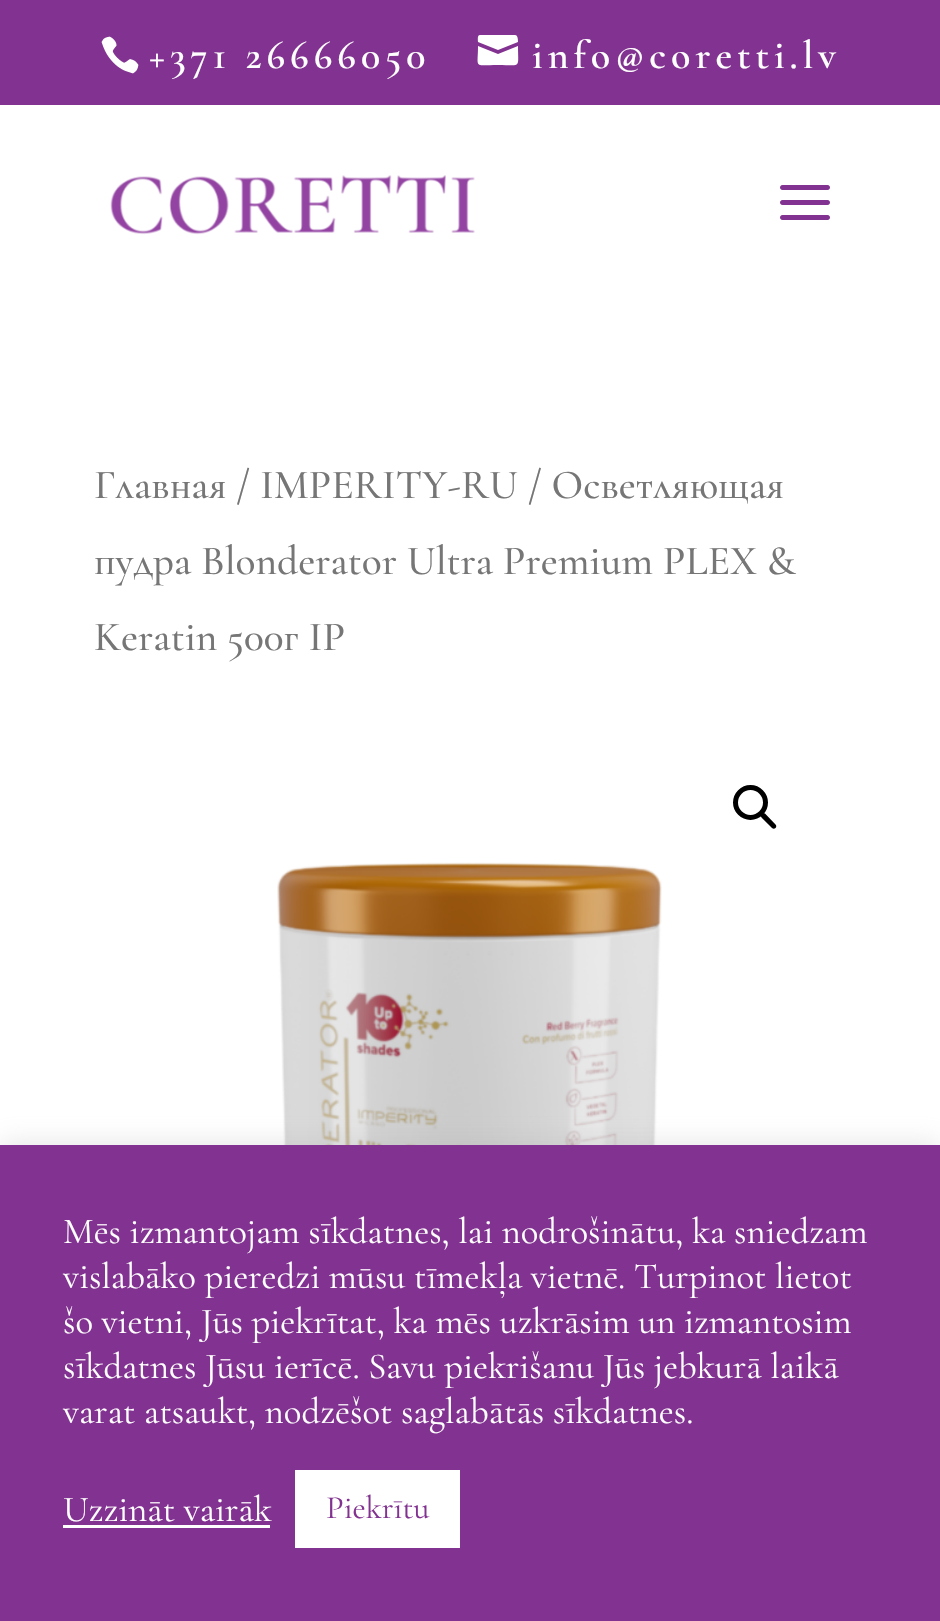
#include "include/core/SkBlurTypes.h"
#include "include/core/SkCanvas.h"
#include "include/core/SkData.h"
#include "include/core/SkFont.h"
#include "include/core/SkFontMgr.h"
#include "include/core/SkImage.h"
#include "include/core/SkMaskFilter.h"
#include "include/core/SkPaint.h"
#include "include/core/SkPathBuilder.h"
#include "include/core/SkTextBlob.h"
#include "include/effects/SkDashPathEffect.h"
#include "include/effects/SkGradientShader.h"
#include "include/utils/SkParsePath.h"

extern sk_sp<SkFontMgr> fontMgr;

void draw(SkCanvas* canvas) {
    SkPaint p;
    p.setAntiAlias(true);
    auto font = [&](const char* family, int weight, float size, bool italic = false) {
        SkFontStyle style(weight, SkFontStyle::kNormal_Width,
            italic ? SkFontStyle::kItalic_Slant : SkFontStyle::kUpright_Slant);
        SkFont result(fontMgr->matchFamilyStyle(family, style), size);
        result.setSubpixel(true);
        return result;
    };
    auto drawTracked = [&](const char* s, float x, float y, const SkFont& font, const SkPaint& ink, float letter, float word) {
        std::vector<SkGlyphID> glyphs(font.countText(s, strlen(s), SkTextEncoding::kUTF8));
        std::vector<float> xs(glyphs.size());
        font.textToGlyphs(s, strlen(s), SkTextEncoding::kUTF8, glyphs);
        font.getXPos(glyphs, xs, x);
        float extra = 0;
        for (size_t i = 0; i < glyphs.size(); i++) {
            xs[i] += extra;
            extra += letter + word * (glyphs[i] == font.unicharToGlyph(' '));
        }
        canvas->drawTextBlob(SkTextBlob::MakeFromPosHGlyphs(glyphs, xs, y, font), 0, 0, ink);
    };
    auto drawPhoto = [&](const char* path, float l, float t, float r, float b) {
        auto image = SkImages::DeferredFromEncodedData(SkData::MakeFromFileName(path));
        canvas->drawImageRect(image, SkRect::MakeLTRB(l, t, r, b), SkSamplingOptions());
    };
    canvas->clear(0xFFFFFFFF);
    p.setColor(0xFF823290);
    canvas->drawRect(SkRect::MakeLTRB(0, 0, 940, 105), p);
    drawPhoto("media/1.png", 101, 36, 139, 74);
    auto font1 = font("Cormorant Garamond", 600, 40);
    p.setColor(0xFFFFFFFF);
    drawTracked("+371 26666050", 149, 68, font1, p, 5, 0);
    drawTracked("info@coretti.lv", 532, 68, font1, p, 5, 0);
    canvas->drawPath(SkPathBuilder().moveTo(515, 35).lineTo(480, 35).cubicTo(477, 35, 478, 40, 478, 42).lineTo(498, 50).lineTo(518, 42).cubicTo(518, 40, 518, 35, 515, 35).close().moveTo(478, 46).cubicTo(478, 69, 473, 65, 498, 65).cubicTo(522, 65, 518, 69, 518, 46).lineTo(498, 54).close().detach(), p);
    drawPhoto("media/2.png", 110, 175, 475, 235);
    drawPhoto("media/3.png", 780, 185, 830, 220);
    auto font2 = font("Cormorant Garamond", 500, 41.4f);
    p.setColor(0xFF767676);
    {
        const struct { const char* s; float x, y; } items[] = {
            {"Главная / IMPERITY-RU / Осветляющая", 94, 498},
            {"пудра Blonderator Ultra Premium PLEX &", 94, 574},
            {"Keratin 500г IP", 94, 650},
        };
        for (auto [s, x, y] : items) {
            canvas->drawString(s, x, y, font2, p);
        }
    }
    p.setStyle(SkPaint::kStroke_Style);
    p.setStrokeWidth(5);
    p.setColor(0xFF000000);
    canvas->drawCircle(750.5f, 802.5f, 15, p);
    p.setStyle(SkPaint::kFill_Style);
    canvas->drawPath(SkPathBuilder().moveTo(761.5f, 813.5f).cubicTo(762.5f, 813, 764, 813, 765, 813.5f).lineTo(775.5f, 824.5f).cubicTo(776.5f, 825.5f, 776.5f, 827, 775.5f, 828).cubicTo(774.5f, 829, 773, 829, 772, 828).lineTo(761.5f, 817.5f).cubicTo(760.5f, 816.5f, 760.5f, 814.5f, 761.5f, 813.5f).close().detach(), p);
    drawPhoto("media/4.png", 277, 862, 662, 1145);
    p.setColor(0x4DACABAB);
    p.setMaskFilter(SkMaskFilter::MakeBlur(kNormal_SkBlurStyle, 12.5f));
    canvas->drawRect(SkRect::MakeLTRB(0, 1143, 940, 1620), p);
    p.setMaskFilter(nullptr);
    p.setColor(0xFF823290);
    canvas->drawRect(SkRect::MakeLTRB(0, 1145, 940, 1621), p);
    auto font3 = font("Cormorant Garamond", 400, 36.7f);
    p.setColor(0xFFFFFFFF);
    {
        const struct { const char* s; float x, y; } items[] = {
            {"Mēs izmantojam sīkdatnes, lai nodrošinātu, ka sniedzam", 63, 1243},
            {"vislabāko pieredzi mūsu tīmekļa vietnē. Turpinot lietot", 63, 1288},
            {"šo vietni, Jūs piekrītat, ka mēs uzkrāsim un izmantosim", 63, 1333},
            {"sīkdatnes Jūsu ierīcē. Savu piekrišanu Jūs jebkurā laikā", 63, 1378},
            {"varat atsaukt, nodzēšot saglabātās sīkdatnes.", 63, 1423},
            {"Uzzināt vairāk", 63, 1521},
        };
        for (auto [s, x, y] : items) {
            canvas->drawString(s, x, y, font3, p);
        }
    }
    canvas->drawRect(SkRect::MakeLTRB(63, 1525, 270, 1528), p);
    canvas->drawRect(SkRect::MakeLTRB(295, 1470, 460, 1548), p);
    auto font4 = font("Cormorant Garamond", 400, 32.5f);
    p.setColor(0xFF823290);
    canvas->drawString("Piekrītu", 326, 1518, font4, p);
}
